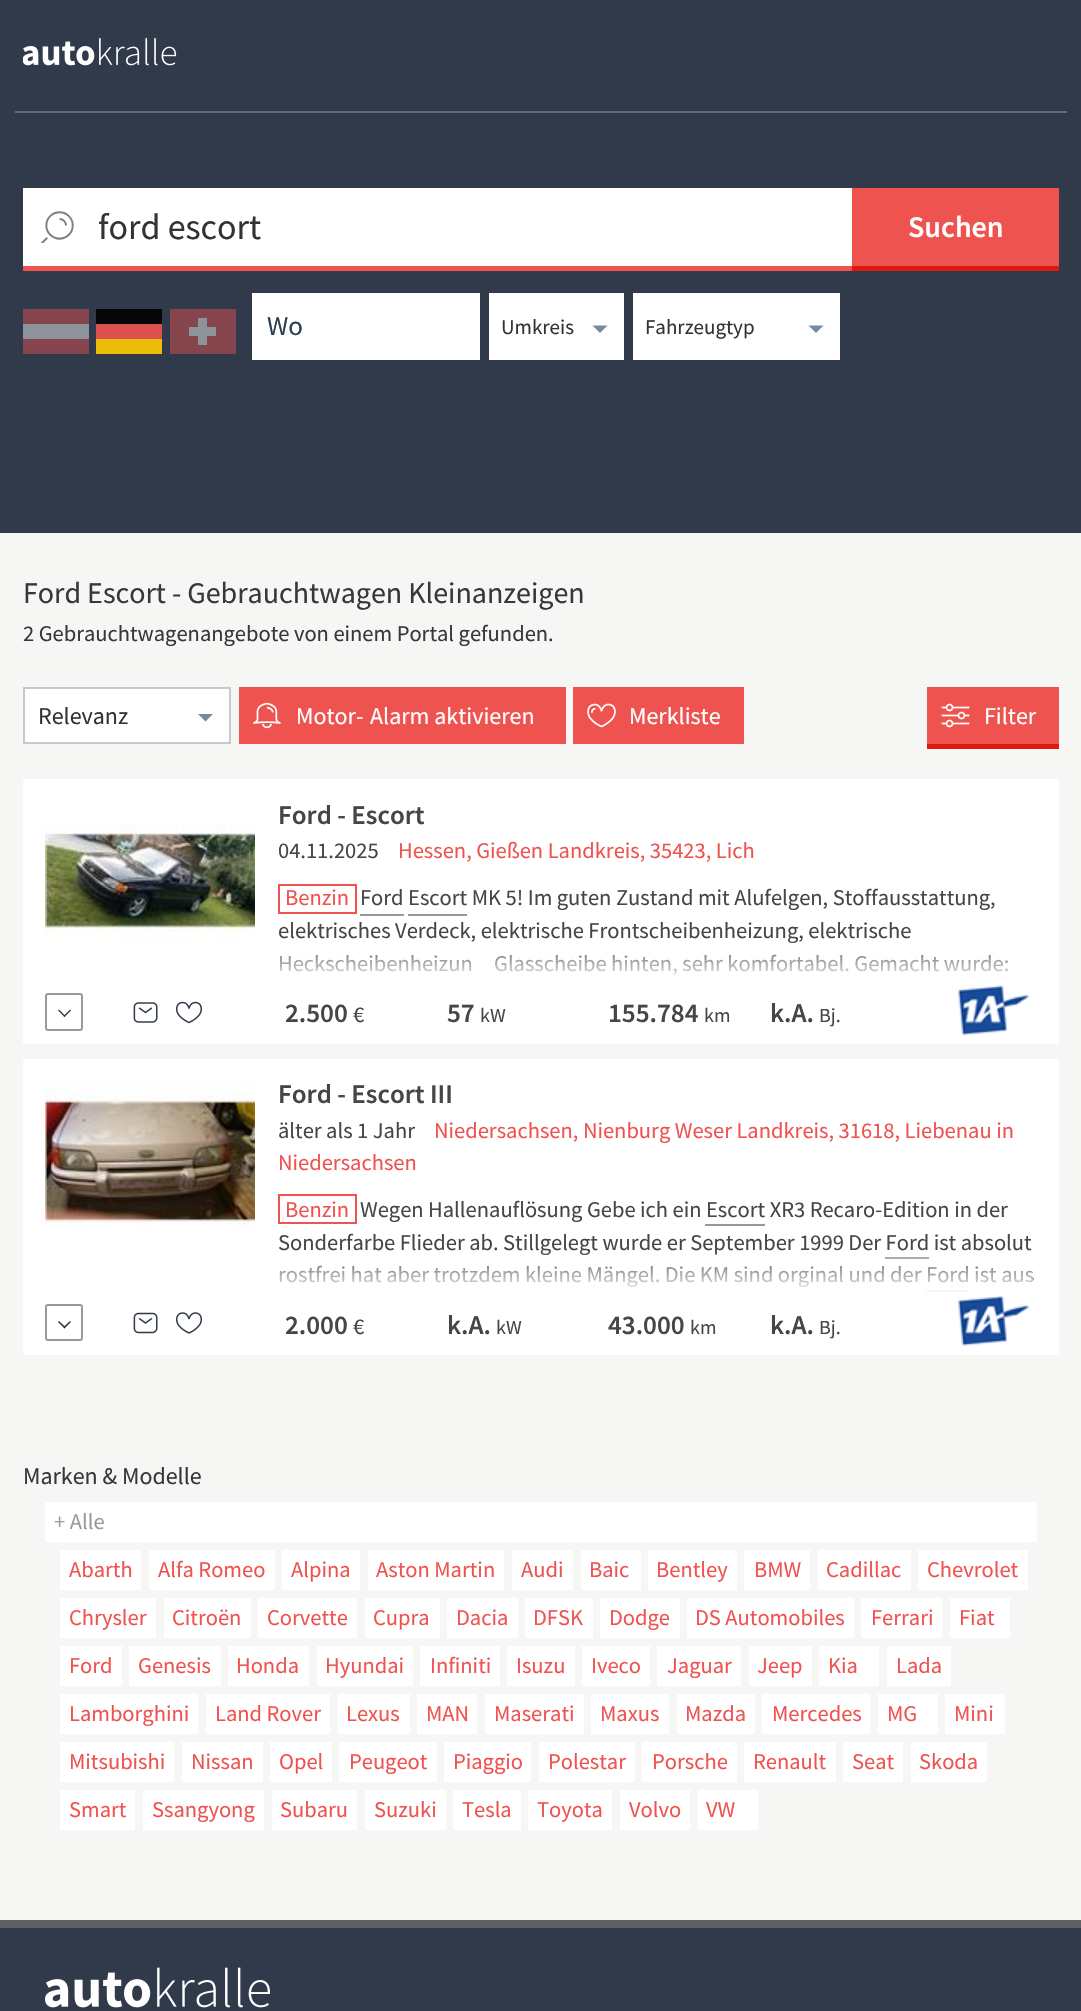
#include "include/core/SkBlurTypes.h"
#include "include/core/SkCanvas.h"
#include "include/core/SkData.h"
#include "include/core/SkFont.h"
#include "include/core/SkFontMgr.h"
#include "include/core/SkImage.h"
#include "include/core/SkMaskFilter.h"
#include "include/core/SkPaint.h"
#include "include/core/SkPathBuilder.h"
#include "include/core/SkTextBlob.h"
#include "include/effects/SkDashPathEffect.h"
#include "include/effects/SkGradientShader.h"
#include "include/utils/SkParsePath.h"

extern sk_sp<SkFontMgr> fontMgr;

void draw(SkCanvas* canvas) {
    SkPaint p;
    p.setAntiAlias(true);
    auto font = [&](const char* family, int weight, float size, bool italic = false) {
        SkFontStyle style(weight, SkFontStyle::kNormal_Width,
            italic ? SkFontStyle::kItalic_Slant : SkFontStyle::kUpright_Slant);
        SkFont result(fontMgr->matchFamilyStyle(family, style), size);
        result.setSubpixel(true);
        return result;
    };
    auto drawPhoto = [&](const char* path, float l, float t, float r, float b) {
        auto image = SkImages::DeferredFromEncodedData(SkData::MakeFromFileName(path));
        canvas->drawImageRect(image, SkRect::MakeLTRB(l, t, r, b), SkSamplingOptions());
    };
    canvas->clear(0xFFF6F6F4);
    p.setColor(0xFF303A4A);
    canvas->drawRect(SkRect::MakeLTRB(0, 0, 1081, 533), p);
    drawPhoto("media/1.png", 23, 38, 177, 66);
    p.setColor(0xFF646B77);
    canvas->drawRect(SkRect::MakeLTRB(15, 111, 1067, 113), p);
    p.setColor(0xFFFFFFFF);
    canvas->drawRect(SkRect::MakeLTRB(23, 188, 852, 266), p);
    drawPhoto("media/2.png", 40, 211, 74, 243);
    p.setColor(0xFFEF5350);
    canvas->drawRect(SkRect::MakeLTRB(23, 266, 852, 271), p);
    auto font1 = font("Source Sans Pro", 400, 36);
    p.setColor(0xFF333333);
    canvas->drawString("ford escort", 98, 239, font1, p);
    p.setColor(0xFFEF5350);
    canvas->drawRect(SkRect::MakeLTRB(852, 188, 1059, 266), p);
    p.setColor(0xFFDC1A14);
    canvas->drawRect(SkRect::MakeLTRB(852, 266, 1059, 271), p);
    auto font2 = font("Source Sans Pro", 600, 30);
    p.setColor(0xFFFFFFFF);
    canvas->drawString("Suchen", 908, 237, font2, p);
    {
        const struct { float l, t, r, b; SkColor color; } items[] = {
            {23, 324, 89, 339, 0xFF8D939B},
            {23, 309, 89, 324, 0xFF86454D},
            {23, 339, 89, 354, 0xFF86454D},
            {96, 324, 162, 339, 0xFFDC514F},
            {96, 309, 162, 324, 0xFF050607},
            {96, 339, 162, 354, 0xFFEABD07},
            {189, 327, 216, 336, 0xFF8D939B},
            {189, 309, 216, 327, 0xFF86454D},
            {216, 309, 236, 336, 0xFF86454D},
            {189, 336, 236, 354, 0xFF86454D},
            {170, 309, 189, 354, 0xFF86454D},
            {198, 318, 207, 345, 0xFF8D939B},
            {252, 293, 480, 360, 0xFFFFFFFF},
        };
        for (auto [l, t, r, b, color] : items) {
            p.setColor(color);
            canvas->drawRect(SkRect::MakeLTRB(l, t, r, b), p);
        }
    }
    auto font3 = font("Source Sans Pro", 400, 27);
    p.setColor(0xFF2C3E50);
    canvas->drawString("Wo", 267, 335, font3, p);
    p.setColor(0xFFFFFFFF);
    canvas->drawRect(SkRect::MakeLTRB(489, 293, 624, 360), p);
    auto font4 = font("Source Sans Pro", 400, 21);
    p.setColor(0xFF333333);
    canvas->drawString("Umkreis", 501, 334, font4, p);
    p.setColor(0xFF788B9E);
    canvas->drawPath(SkPathBuilder().moveTo(592.5f, 325.5f).lineTo(607.5f, 325.5f).lineTo(600, 333).close().detach(), p);
    p.setColor(0xFFFFFFFF);
    canvas->drawRect(SkRect::MakeLTRB(633, 293, 840, 360), p);
    p.setColor(0xFF333333);
    canvas->drawString("Fahrzeugtyp", 645, 334, font4, p);
    p.setColor(0xFF788B9E);
    canvas->drawPath(SkPathBuilder().moveTo(808.5f, 325.5f).lineTo(823.5f, 325.5f).lineTo(816, 333).close().detach(), p);
    auto font5 = font("Source Sans Pro", 400, 30);
    p.setColor(0xFF383839);
    canvas->drawString("Ford Escort - Gebrauchtwagen Kleinanzeigen", 23, 603, font5, p);
    auto font6 = font("Source Sans Pro", 400, 22.5f);
    canvas->drawString("2 Gebrauchtwagenangebote von einem Portal gefunden.", 23, 641, font6, p);
    p.setColor(0xFFFFFFFF);
    canvas->drawRect(SkRect::MakeLTRB(24, 688, 230, 743), p);
    p.setStyle(SkPaint::kStroke_Style);
    p.setStrokeWidth(2);
    p.setColor(0xFFC9C9C9);
    canvas->drawRect(SkRect::MakeLTRB(24, 688, 230, 743), p);
    auto font7 = font("Source Sans Pro", 400, 24);
    p.setStyle(SkPaint::kFill_Style);
    p.setColor(0xFF333333);
    canvas->drawString("Relevanz", 38, 724, font7, p);
    p.setColor(0xFF788B9E);
    canvas->drawPath(SkPathBuilder().moveTo(198, 714).lineTo(213, 714).lineTo(205.5f, 721.5f).close().detach(), p);
    p.setColor(0xFFEF5350);
    canvas->drawRect(SkRect::MakeLTRB(239, 687, 566, 744), p);
    drawPhoto("media/3.png", 253, 702, 281, 729);
    p.setColor(0xFFFFFFFF);
    canvas->drawString("Motor-", 296, 724, font7, p);
    canvas->drawString("Alarm aktivieren", 370, 724, font7, p);
    p.setColor(0xFFEF5350);
    canvas->drawRect(SkRect::MakeLTRB(573, 687, 744, 744), p);
    drawPhoto("media/4.png", 587, 703, 616, 728);
    p.setColor(0xFFFFFFFF);
    canvas->drawString("Merkliste", 629, 724, font7, p);
    p.setColor(0xFFEF5350);
    canvas->drawRect(SkRect::MakeLTRB(927, 687, 1059, 744), p);
    p.setColor(0xFFDC1A14);
    canvas->drawRect(SkRect::MakeLTRB(927, 744, 1059, 749), p);
    drawPhoto("media/5.png", 941, 703, 970, 728);
    p.setColor(0xFFFFFFFF);
    canvas->drawString("Filter", 984, 724, font7, p);
    canvas->drawRect(SkRect::MakeLTRB(23, 779, 1059, 1355), p);
    p.setColor(0xFFF6F6F4);
    canvas->drawRect(SkRect::MakeLTRB(23, 1044, 1059, 1059), p);
    auto font8 = font("Source Sans Pro", 600, 27);
    p.setColor(0xFF464646);
    canvas->drawString("Ford - Escort", 278, 824, font8, p);
    canvas->drawString("04.11.2025", 278, 858, font6, p);
    p.setColor(0xFFEF5350);
    canvas->drawString("Hessen, Gießen Landkreis, 35423, Lich", 398, 858, font6, p);
    p.setStyle(SkPaint::kStroke_Style);
    canvas->drawRect(SkRect::MakeLTRB(279, 885, 356, 913), p);
    p.setStyle(SkPaint::kFill_Style);
    canvas->drawString("Benzin", 285, 905, font6, p);
    p.setColor(0xFF464646);
    canvas->drawString("Ford Escort MK 5! Im guten Zustand mit Alufelgen, Stoffausstattung,", 360, 905, font6, p);
    p.setColor(0xFF999999);
    canvas->drawRect(SkRect::MakeLTRB(360, 914, 404, 916), p);
    canvas->drawRect(SkRect::MakeLTRB(408, 914, 467, 916), p);
    p.setColor(0xFF464646);
    {
        const struct { const char* s; float x, y; } items[] = {
            {"elektrisches Verdeck, elektrische Frontscheibenheizung, elektrische", 278, 938},
            {"Heckscheibenheizun", 278, 971},
            {"Glasscheibe hinten, sehr komfortabel. Gemacht wurde:", 494, 971},
        };
        for (auto [s, x, y] : items) {
            canvas->drawString(s, x, y, font6, p);
        }
    }
    {
        const SkColor colors[] = {0x00FFFFFF, 0xFFFFFFFF};
        const float stops[] = {0, 1};
        const SkPoint ends[] = {{657, 939}, {657, 984}};
        p.setShader(SkGradientShader::MakeLinear(ends, colors, stops, 2, SkTileMode::kClamp));
        p.setAlpha(255);
    }
    canvas->drawRect(SkRect::MakeLTRB(279, 940, 1008, 975), p);
    drawPhoto("media/6.png", 45, 807, 255, 952);
    p.setShader(nullptr);
    p.setColor(0xFF464646);
    canvas->drawString("2.500", 285, 1022, font8, p);
    canvas->drawString("€", 353, 1022, font6, p);
    canvas->drawString("57", 447, 1022, font8, p);
    auto font9 = font("Source Sans Pro", 400, 20);
    canvas->drawString("kW", 480, 1022, font9, p);
    canvas->drawString("155.784", 608, 1022, font8, p);
    canvas->drawString("km", 704, 1022, font9, p);
    canvas->drawString("k.A.", 770, 1022, font8, p);
    canvas->drawString("Bj.", 819, 1022, font9, p);
    p.setStyle(SkPaint::kStroke_Style);
    p.setColor(0xFF999999);
    canvas->drawRoundRect(SkRect::MakeLTRB(46, 994, 82, 1030), 2, 2, p);
    p.setStyle(SkPaint::kFill_Style);
    p.setColor(0xFF303A4A);
    canvas->drawPath(SkPathBuilder().moveTo(70, 1009.5f).lineTo(71, 1010.5f).lineTo(64.5f, 1017).lineTo(63.5f, 1016).close().detach(), p);
    canvas->drawPath(SkPathBuilder().moveTo(59, 1009.5f).lineTo(65.5f, 1016).lineTo(64.5f, 1017).lineTo(58, 1010.5f).close().detach(), p);
    drawPhoto("media/7.png", 133, 1002, 158, 1023);
    drawPhoto("media/8.png", 175, 1001, 203, 1024);
    drawPhoto("media/9.png", 957, 985, 1030, 1036);
    p.setColor(0xFF464646);
    canvas->drawString("Ford - Escort III", 278, 1103, font8, p);
    canvas->drawString("älter als 1 Jahr", 278, 1138, font6, p);
    p.setColor(0xFFEF5350);
    canvas->drawString("Niedersachsen, Nienburg Weser Landkreis, 31618, Liebenau in", 434, 1138, font6, p);
    canvas->drawString("Niedersachsen", 278, 1170, font6, p);
    p.setStyle(SkPaint::kStroke_Style);
    canvas->drawRect(SkRect::MakeLTRB(279, 1195, 356, 1223), p);
    p.setStyle(SkPaint::kFill_Style);
    canvas->drawString("Benzin", 285, 1217, font6, p);
    p.setColor(0xFF464646);
    canvas->drawString("Wegen Hallenauflösung Gebe ich ein Escort XR3 Recaro-Edition in der", 360, 1217, font6, p);
    p.setColor(0xFF999999);
    canvas->drawRect(SkRect::MakeLTRB(705, 1224, 765, 1226), p);
    p.setColor(0xFF464646);
    canvas->drawString("Sonderfarbe Flieder ab. Stillgelegt wurde er September 1999 Der Ford ist absolut", 278, 1250, font6, p);
    p.setColor(0xFF999999);
    canvas->drawRect(SkRect::MakeLTRB(885, 1257, 929, 1259), p);
    p.setColor(0xFF464646);
    canvas->drawString("rostfrei hat aber trotzdem kleine Mängel. Die KM sind orginal und der Ford ist aus", 278, 1282, font6, p);
    p.setColor(0xFF999999);
    canvas->drawRect(SkRect::MakeLTRB(926, 1290, 969, 1292), p);
    {
        const SkColor colors[] = {0x00FFFFFF, 0xFFFFFFFF};
        const float stops[] = {0, 1};
        const SkPoint ends[] = {{657, 1250}, {657, 1295}};
        p.setShader(SkGradientShader::MakeLinear(ends, colors, stops, 2, SkTileMode::kClamp));
        p.setAlpha(255);
    }
    canvas->drawRect(SkRect::MakeLTRB(279, 1251, 1033, 1292), p);
    drawPhoto("media/10.png", 45, 1081, 255, 1232);
    p.setShader(nullptr);
    p.setColor(0xFF464646);
    canvas->drawString("2.000", 285, 1334, font8, p);
    canvas->drawString("€", 353, 1334, font6, p);
    canvas->drawString("k.A.", 447, 1334, font8, p);
    canvas->drawString("kW", 496, 1334, font9, p);
    canvas->drawString("43.000", 608, 1334, font8, p);
    canvas->drawString("km", 690, 1334, font9, p);
    canvas->drawString("k.A.", 770, 1334, font8, p);
    canvas->drawString("Bj.", 819, 1334, font9, p);
    p.setStyle(SkPaint::kStroke_Style);
    p.setColor(0xFF999999);
    canvas->drawRoundRect(SkRect::MakeLTRB(46, 1305, 82, 1340), 2, 2, p);
    p.setStyle(SkPaint::kFill_Style);
    p.setColor(0xFF303A4A);
    canvas->drawPath(SkPathBuilder().moveTo(70, 1321).lineTo(71, 1322).lineTo(64.5f, 1328.5f).lineTo(63.5f, 1327).close().detach(), p);
    canvas->drawPath(SkPathBuilder().moveTo(59, 1321).lineTo(65.5f, 1327).lineTo(64.5f, 1328.5f).lineTo(58, 1322).close().detach(), p);
    drawPhoto("media/11.png", 133, 1312, 158, 1334);
    drawPhoto("media/12.png", 175, 1312, 203, 1334);
    drawPhoto("media/13.png", 957, 1295, 1030, 1346);
    p.setColor(0xFF383839);
    canvas->drawString("Marken & Modelle", 23, 1484, font7, p);
    p.setColor(0xFFFFFFFF);
    canvas->drawRect(SkRect::MakeLTRB(45, 1502, 1037, 1542), p);
    p.setColor(0xFF9A9A9A);
    canvas->drawString("+ Alle", 54, 1529, font6, p);
    p.setColor(0xFFFFFFFF);
    canvas->drawRect(SkRect::MakeLTRB(60, 1550, 141, 1590), p);
    p.setColor(0xFFEF5350);
    canvas->drawString("Abarth", 69, 1577, font6, p);
    p.setColor(0xFFFFFFFF);
    canvas->drawRect(SkRect::MakeLTRB(149, 1550, 275, 1590), p);
    p.setColor(0xFFEF5350);
    canvas->drawString("Alfa Romeo", 158, 1577, font6, p);
    p.setColor(0xFFFFFFFF);
    canvas->drawRect(SkRect::MakeLTRB(282, 1550, 360, 1590), p);
    p.setColor(0xFFEF5350);
    canvas->drawString("Alpina", 291, 1577, font6, p);
    p.setColor(0xFFFFFFFF);
    canvas->drawRect(SkRect::MakeLTRB(368, 1550, 504, 1590), p);
    p.setColor(0xFFEF5350);
    canvas->drawString("Aston Martin", 376, 1577, font6, p);
    p.setColor(0xFFFFFFFF);
    canvas->drawRect(SkRect::MakeLTRB(512, 1550, 573, 1590), p);
    p.setColor(0xFFEF5350);
    canvas->drawString("Audi", 521, 1577, font6, p);
    p.setColor(0xFFFFFFFF);
    canvas->drawRect(SkRect::MakeLTRB(581, 1550, 641, 1590), p);
    p.setColor(0xFFEF5350);
    canvas->drawString("Baic", 589, 1577, font6, p);
    p.setColor(0xFFFFFFFF);
    canvas->drawRect(SkRect::MakeLTRB(648, 1550, 737, 1590), p);
    p.setColor(0xFFEF5350);
    canvas->drawString("Bentley", 656, 1577, font6, p);
    p.setColor(0xFFFFFFFF);
    canvas->drawRect(SkRect::MakeLTRB(744, 1550, 810, 1590), p);
    p.setColor(0xFFEF5350);
    canvas->drawString("BMW", 754, 1577, font6, p);
    p.setColor(0xFFFFFFFF);
    canvas->drawRect(SkRect::MakeLTRB(818, 1550, 911, 1590), p);
    p.setColor(0xFFEF5350);
    canvas->drawString("Cadillac", 826, 1577, font6, p);
    p.setColor(0xFFFFFFFF);
    canvas->drawRect(SkRect::MakeLTRB(918, 1550, 1028, 1590), p);
    p.setColor(0xFFEF5350);
    canvas->drawString("Chevrolet", 927, 1577, font6, p);
    p.setColor(0xFFFFFFFF);
    canvas->drawRect(SkRect::MakeLTRB(60, 1598, 156, 1638), p);
    p.setColor(0xFFEF5350);
    canvas->drawString("Chrysler", 69, 1625, font6, p);
    p.setColor(0xFFFFFFFF);
    canvas->drawRect(SkRect::MakeLTRB(164, 1598, 251, 1638), p);
    p.setColor(0xFFEF5350);
    canvas->drawString("Citroën", 172, 1625, font6, p);
    p.setColor(0xFFFFFFFF);
    canvas->drawRect(SkRect::MakeLTRB(258, 1598, 357, 1638), p);
    p.setColor(0xFFEF5350);
    canvas->drawString("Corvette", 267, 1625, font6, p);
    p.setColor(0xFFFFFFFF);
    canvas->drawRect(SkRect::MakeLTRB(365, 1598, 440, 1638), p);
    p.setColor(0xFFEF5350);
    canvas->drawString("Cupra", 373, 1625, font6, p);
    p.setColor(0xFFFFFFFF);
    canvas->drawRect(SkRect::MakeLTRB(447, 1598, 518, 1638), p);
    p.setColor(0xFFEF5350);
    canvas->drawString("Dacia", 456, 1625, font6, p);
    p.setColor(0xFFFFFFFF);
    canvas->drawRect(SkRect::MakeLTRB(525, 1598, 593, 1638), p);
    p.setColor(0xFFEF5350);
    canvas->drawString("DFSK", 533, 1625, font6, p);
    p.setColor(0xFFFFFFFF);
    canvas->drawRect(SkRect::MakeLTRB(600, 1598, 680, 1638), p);
    p.setColor(0xFFEF5350);
    canvas->drawString("Dodge", 609, 1625, font6, p);
    p.setColor(0xFFFFFFFF);
    canvas->drawRect(SkRect::MakeLTRB(687, 1598, 854, 1638), p);
    p.setColor(0xFFEF5350);
    canvas->drawString("DS Automobiles", 695, 1625, font6, p);
    p.setColor(0xFFFFFFFF);
    canvas->drawRect(SkRect::MakeLTRB(861, 1598, 942, 1638), p);
    p.setColor(0xFFEF5350);
    canvas->drawString("Ferrari", 871, 1625, font6, p);
    p.setColor(0xFFFFFFFF);
    canvas->drawRect(SkRect::MakeLTRB(950, 1598, 1010, 1638), p);
    p.setColor(0xFFEF5350);
    canvas->drawString("Fiat", 959, 1625, font6, p);
    p.setColor(0xFFFFFFFF);
    canvas->drawRect(SkRect::MakeLTRB(60, 1646, 122, 1686), p);
    p.setColor(0xFFEF5350);
    canvas->drawString("Ford", 69, 1673, font6, p);
    p.setColor(0xFFFFFFFF);
    canvas->drawRect(SkRect::MakeLTRB(129, 1646, 221, 1686), p);
    p.setColor(0xFFEF5350);
    canvas->drawString("Genesis", 138, 1673, font6, p);
    p.setColor(0xFFFFFFFF);
    canvas->drawRect(SkRect::MakeLTRB(228, 1646, 309, 1686), p);
    p.setColor(0xFFEF5350);
    canvas->drawString("Honda", 236, 1673, font6, p);
    p.setColor(0xFFFFFFFF);
    canvas->drawRect(SkRect::MakeLTRB(317, 1646, 413, 1686), p);
    p.setColor(0xFFEF5350);
    canvas->drawString("Hyundai", 325, 1673, font6, p);
    p.setColor(0xFFFFFFFF);
    canvas->drawRect(SkRect::MakeLTRB(420, 1646, 500, 1686), p);
    p.setColor(0xFFEF5350);
    canvas->drawString("Infiniti", 430, 1673, font6, p);
    p.setColor(0xFFFFFFFF);
    canvas->drawRect(SkRect::MakeLTRB(507, 1646, 575, 1686), p);
    p.setColor(0xFFEF5350);
    canvas->drawString("Isuzu", 516, 1673, font6, p);
    p.setColor(0xFFFFFFFF);
    canvas->drawRect(SkRect::MakeLTRB(582, 1646, 650, 1686), p);
    p.setColor(0xFFEF5350);
    canvas->drawString("Iveco", 591, 1673, font6, p);
    p.setColor(0xFFFFFFFF);
    canvas->drawRect(SkRect::MakeLTRB(657, 1646, 741, 1686), p);
    p.setColor(0xFFEF5350);
    canvas->drawString("Jaguar", 667, 1673, font6, p);
    p.setColor(0xFFFFFFFF);
    canvas->drawRect(SkRect::MakeLTRB(749, 1646, 812, 1686), p);
    p.setColor(0xFFEF5350);
    canvas->drawString("Jeep", 757, 1673, font6, p);
    p.setColor(0xFFFFFFFF);
    canvas->drawRect(SkRect::MakeLTRB(819, 1646, 879, 1686), p);
    p.setColor(0xFFEF5350);
    canvas->drawString("Kia", 828, 1673, font6, p);
    p.setColor(0xFFFFFFFF);
    canvas->drawRect(SkRect::MakeLTRB(887, 1646, 951, 1686), p);
    p.setColor(0xFFEF5350);
    canvas->drawString("Lada", 896, 1673, font6, p);
    p.setColor(0xFFFFFFFF);
    canvas->drawRect(SkRect::MakeLTRB(60, 1694, 198, 1734), p);
    p.setColor(0xFFEF5350);
    canvas->drawString("Lamborghini", 69, 1721, font6, p);
    p.setColor(0xFFFFFFFF);
    canvas->drawRect(SkRect::MakeLTRB(206, 1694, 330, 1734), p);
    p.setColor(0xFFEF5350);
    canvas->drawString("Land Rover", 215, 1721, font6, p);
    p.setColor(0xFFFFFFFF);
    canvas->drawRect(SkRect::MakeLTRB(338, 1694, 410, 1734), p);
    p.setColor(0xFFEF5350);
    canvas->drawString("Lexus", 346, 1721, font6, p);
    p.setColor(0xFFFFFFFF);
    canvas->drawRect(SkRect::MakeLTRB(417, 1694, 477, 1734), p);
    p.setColor(0xFFEF5350);
    canvas->drawString("MAN", 426, 1721, font6, p);
    p.setColor(0xFFFFFFFF);
    canvas->drawRect(SkRect::MakeLTRB(485, 1694, 584, 1734), p);
    p.setColor(0xFFEF5350);
    canvas->drawString("Maserati", 494, 1721, font6, p);
    p.setColor(0xFFFFFFFF);
    canvas->drawRect(SkRect::MakeLTRB(591, 1694, 669, 1734), p);
    p.setColor(0xFFEF5350);
    canvas->drawString("Maxus", 600, 1721, font6, p);
    p.setColor(0xFFFFFFFF);
    canvas->drawRect(SkRect::MakeLTRB(677, 1694, 755, 1734), p);
    p.setColor(0xFFEF5350);
    canvas->drawString("Mazda", 685, 1721, font6, p);
    p.setColor(0xFFFFFFFF);
    canvas->drawRect(SkRect::MakeLTRB(762, 1694, 870, 1734), p);
    p.setColor(0xFFEF5350);
    canvas->drawString("Mercedes", 772, 1721, font6, p);
    p.setColor(0xFFFFFFFF);
    canvas->drawRect(SkRect::MakeLTRB(878, 1694, 938, 1734), p);
    p.setColor(0xFFEF5350);
    canvas->drawString("MG", 887, 1721, font6, p);
    p.setColor(0xFFFFFFFF);
    canvas->drawRect(SkRect::MakeLTRB(945, 1694, 1005, 1734), p);
    p.setColor(0xFFEF5350);
    canvas->drawString("Mini", 954, 1721, font6, p);
    p.setColor(0xFFFFFFFF);
    canvas->drawRect(SkRect::MakeLTRB(60, 1742, 174, 1782), p);
    p.setColor(0xFFEF5350);
    canvas->drawString("Mitsubishi", 69, 1769, font6, p);
    p.setColor(0xFFFFFFFF);
    canvas->drawRect(SkRect::MakeLTRB(182, 1742, 263, 1782), p);
    p.setColor(0xFFEF5350);
    canvas->drawString("Nissan", 191, 1769, font6, p);
    p.setColor(0xFFFFFFFF);
    canvas->drawRect(SkRect::MakeLTRB(270, 1742, 332, 1782), p);
    p.setColor(0xFFEF5350);
    canvas->drawString("Opel", 279, 1769, font6, p);
    p.setColor(0xFFFFFFFF);
    canvas->drawRect(SkRect::MakeLTRB(339, 1742, 437, 1782), p);
    p.setColor(0xFFEF5350);
    canvas->drawString("Peugeot", 349, 1769, font6, p);
    p.setColor(0xFFFFFFFF);
    canvas->drawRect(SkRect::MakeLTRB(444, 1742, 531, 1782), p);
    p.setColor(0xFFEF5350);
    canvas->drawString("Piaggio", 453, 1769, font6, p);
    p.setColor(0xFFFFFFFF);
    canvas->drawRect(SkRect::MakeLTRB(539, 1742, 635, 1782), p);
    p.setColor(0xFFEF5350);
    canvas->drawString("Polestar", 548, 1769, font6, p);
    p.setColor(0xFFFFFFFF);
    canvas->drawRect(SkRect::MakeLTRB(642, 1742, 737, 1782), p);
    p.setColor(0xFFEF5350);
    canvas->drawString("Porsche", 652, 1769, font6, p);
    p.setColor(0xFFFFFFFF);
    canvas->drawRect(SkRect::MakeLTRB(744, 1742, 836, 1782), p);
    p.setColor(0xFFEF5350);
    canvas->drawString("Renault", 753, 1769, font6, p);
    p.setColor(0xFFFFFFFF);
    canvas->drawRect(SkRect::MakeLTRB(843, 1742, 903, 1782), p);
    p.setColor(0xFFEF5350);
    canvas->drawString("Seat", 852, 1769, font6, p);
    p.setColor(0xFFFFFFFF);
    canvas->drawRect(SkRect::MakeLTRB(911, 1742, 987, 1782), p);
    p.setColor(0xFFEF5350);
    canvas->drawString("Skoda", 919, 1769, font6, p);
    p.setColor(0xFFFFFFFF);
    canvas->drawRect(SkRect::MakeLTRB(60, 1790, 135, 1830), p);
    p.setColor(0xFFEF5350);
    canvas->drawString("Smart", 69, 1817, font6, p);
    p.setColor(0xFFFFFFFF);
    canvas->drawRect(SkRect::MakeLTRB(143, 1790, 264, 1830), p);
    p.setColor(0xFFEF5350);
    canvas->drawString("Ssangyong", 152, 1817, font6, p);
    p.setColor(0xFFFFFFFF);
    canvas->drawRect(SkRect::MakeLTRB(272, 1790, 357, 1830), p);
    p.setColor(0xFFEF5350);
    canvas->drawString("Subaru", 280, 1817, font6, p);
    p.setColor(0xFFFFFFFF);
    canvas->drawRect(SkRect::MakeLTRB(365, 1790, 446, 1830), p);
    p.setColor(0xFFEF5350);
    canvas->drawString("Suzuki", 374, 1817, font6, p);
    p.setColor(0xFFFFFFFF);
    canvas->drawRect(SkRect::MakeLTRB(453, 1790, 521, 1830), p);
    p.setColor(0xFFEF5350);
    canvas->drawString("Tesla", 462, 1817, font6, p);
    p.setColor(0xFFFFFFFF);
    canvas->drawRect(SkRect::MakeLTRB(528, 1790, 612, 1830), p);
    p.setColor(0xFFEF5350);
    canvas->drawString("Toyota", 537, 1817, font6, p);
    p.setColor(0xFFFFFFFF);
    canvas->drawRect(SkRect::MakeLTRB(620, 1790, 690, 1830), p);
    p.setColor(0xFFEF5350);
    canvas->drawString("Volvo", 629, 1817, font6, p);
    p.setColor(0xFFFFFFFF);
    canvas->drawRect(SkRect::MakeLTRB(698, 1790, 758, 1830), p);
    p.setColor(0xFFEF5350);
    canvas->drawString("VW", 706, 1817, font6, p);
    p.setColor(0xFF303A4A);
    canvas->drawRect(SkRect::MakeLTRB(0, 1928, 1081, 2011), p);
    p.setColor(0xFF606061);
    canvas->drawRect(SkRect::MakeLTRB(0, 1920, 1081, 1928), p);
    drawPhoto("media/14.png", 45, 1967, 270, 2008);
}
